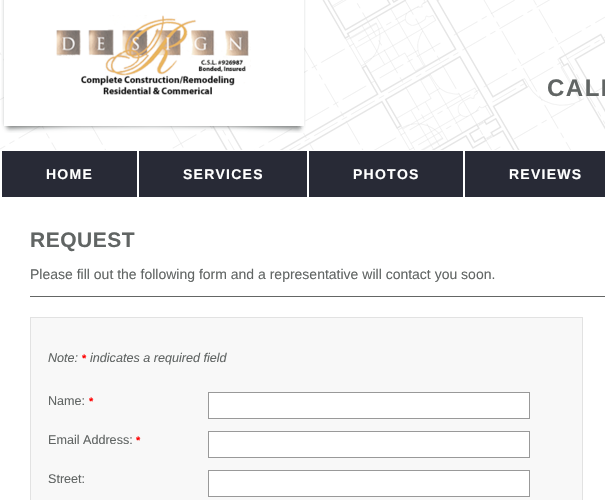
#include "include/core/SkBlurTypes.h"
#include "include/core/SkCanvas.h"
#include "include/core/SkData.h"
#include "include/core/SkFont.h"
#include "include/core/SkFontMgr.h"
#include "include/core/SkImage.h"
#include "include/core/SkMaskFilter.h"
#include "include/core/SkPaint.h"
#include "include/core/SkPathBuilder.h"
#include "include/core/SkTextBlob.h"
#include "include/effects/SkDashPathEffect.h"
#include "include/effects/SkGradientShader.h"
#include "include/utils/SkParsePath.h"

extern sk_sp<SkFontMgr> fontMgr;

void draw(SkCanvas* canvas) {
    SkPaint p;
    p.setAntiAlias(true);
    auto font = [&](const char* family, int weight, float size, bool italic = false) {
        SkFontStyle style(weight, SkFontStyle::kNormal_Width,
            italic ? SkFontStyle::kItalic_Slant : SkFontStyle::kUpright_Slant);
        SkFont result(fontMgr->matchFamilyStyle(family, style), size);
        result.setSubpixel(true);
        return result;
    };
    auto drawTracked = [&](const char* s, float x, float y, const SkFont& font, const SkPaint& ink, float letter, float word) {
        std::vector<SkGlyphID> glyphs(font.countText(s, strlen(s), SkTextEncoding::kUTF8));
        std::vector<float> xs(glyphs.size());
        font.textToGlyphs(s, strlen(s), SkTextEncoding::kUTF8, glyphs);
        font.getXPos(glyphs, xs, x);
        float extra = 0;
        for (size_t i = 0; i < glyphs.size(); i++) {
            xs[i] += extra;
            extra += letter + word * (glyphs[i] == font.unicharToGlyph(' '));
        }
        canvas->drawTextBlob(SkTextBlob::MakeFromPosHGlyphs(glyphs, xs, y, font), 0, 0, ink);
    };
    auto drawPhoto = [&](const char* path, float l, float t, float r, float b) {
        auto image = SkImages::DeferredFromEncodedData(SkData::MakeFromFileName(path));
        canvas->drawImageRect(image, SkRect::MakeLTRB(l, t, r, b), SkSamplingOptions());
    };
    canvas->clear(0xFFFFFFFF);
    drawPhoto("media/1.png", 0, 0, 605, 150);
    drawPhoto("media/2.png", 1, 0, 306, 133);
    drawPhoto("media/3.png", 56, 15, 251, 95);
    auto font1 = font("Liberation Sans", 700, 24);
    p.setColor(0xFF616564);
    drawTracked("CALL", 547, 96, font1, p, 1.5f, 0);
    p.setColor(0xFF282A36);
    canvas->drawRect(SkRect::MakeLTRB(2, 151, 605, 197), p);
    p.setColor(0xFFFFFFFF);
    canvas->drawRect(SkRect::MakeLTRB(137, 151, 139, 197), p);
    auto font2 = font("Liberation Sans", 700, 14);
    drawTracked("HOME", 46, 179, font2, p, 1.25f, 0);
    canvas->drawRect(SkRect::MakeLTRB(307, 151, 309, 197), p);
    drawTracked("SERVICES", 183, 179, font2, p, 1.25f, 0);
    canvas->drawRect(SkRect::MakeLTRB(463, 151, 465, 197), p);
    drawTracked("PHOTOS", 353, 179, font2, p, 1.25f, 0);
    drawTracked("REVIEWS", 509, 179, font2, p, 1.25f, 0);
    auto font3 = font("Liberation Sans", 700, 21);
    p.setColor(0xFF616564);
    drawTracked("REQUEST", 30, 247, font3, p, 0.5f, 0);
    auto font4 = font("Liberation Sans", 400, 14);
    canvas->drawString("Please fill out the following form and a representative will contact you soon.", 30, 279, font4, p);
    p.setColor(0xFF646665);
    canvas->drawRect(SkRect::MakeLTRB(30, 296, 605, 297), p);
    p.setColor(0xFFF8F8F8);
    canvas->drawRect(SkRect::MakeLTRB(30.5f, 317.5f, 582.5f, 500.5f), p);
    p.setStyle(SkPaint::kStroke_Style);
    p.setStrokeWidth(1);
    p.setColor(0xFFE2E2E2);
    canvas->drawRect(SkRect::MakeLTRB(30.5f, 317.5f, 582.5f, 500.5f), p);
    auto font5 = font("Liberation Sans", 400, 12.6f, true);
    p.setStyle(SkPaint::kFill_Style);
    p.setColor(0xFF616564);
    canvas->drawString("Note:", 48, 362, font5, p);
    auto font6 = font("Liberation Sans", 700, 11);
    p.setColor(0xFFFF0000);
    canvas->drawString("*", 82, 362, font6, p);
    p.setColor(0xFF616564);
    canvas->drawString("indicates a required field", 90, 362, font5, p);
    auto font7 = font("Liberation Sans", 400, 12.6f);
    canvas->drawString("Name:", 48, 405, font7, p);
    p.setColor(0xFFFF0000);
    canvas->drawString("*", 89, 405, font6, p);
    p.setColor(0xFFFFFFFF);
    canvas->drawRect(SkRect::MakeLTRB(208.5f, 392.5f, 529.5f, 418.5f), p);
    p.setStyle(SkPaint::kStroke_Style);
    p.setColor(0xFF999999);
    canvas->drawRect(SkRect::MakeLTRB(208.5f, 392.5f, 529.5f, 418.5f), p);
    p.setStyle(SkPaint::kFill_Style);
    p.setColor(0xFF616564);
    canvas->drawString("Email Address:", 48, 444, font7, p);
    p.setColor(0xFFFF0000);
    canvas->drawString("*", 136, 444, font6, p);
    p.setColor(0xFFFFFFFF);
    canvas->drawRect(SkRect::MakeLTRB(208.5f, 431.5f, 529.5f, 457.5f), p);
    p.setStyle(SkPaint::kStroke_Style);
    p.setColor(0xFF999999);
    canvas->drawRect(SkRect::MakeLTRB(208.5f, 431.5f, 529.5f, 457.5f), p);
    p.setStyle(SkPaint::kFill_Style);
    p.setColor(0xFF616564);
    canvas->drawString("Street:", 48, 483, font7, p);
    p.setColor(0xFFFFFFFF);
    canvas->drawRect(SkRect::MakeLTRB(208.5f, 470.5f, 529.5f, 496.5f), p);
    p.setStyle(SkPaint::kStroke_Style);
    p.setColor(0xFF999999);
    canvas->drawRect(SkRect::MakeLTRB(208.5f, 470.5f, 529.5f, 496.5f), p);
}
